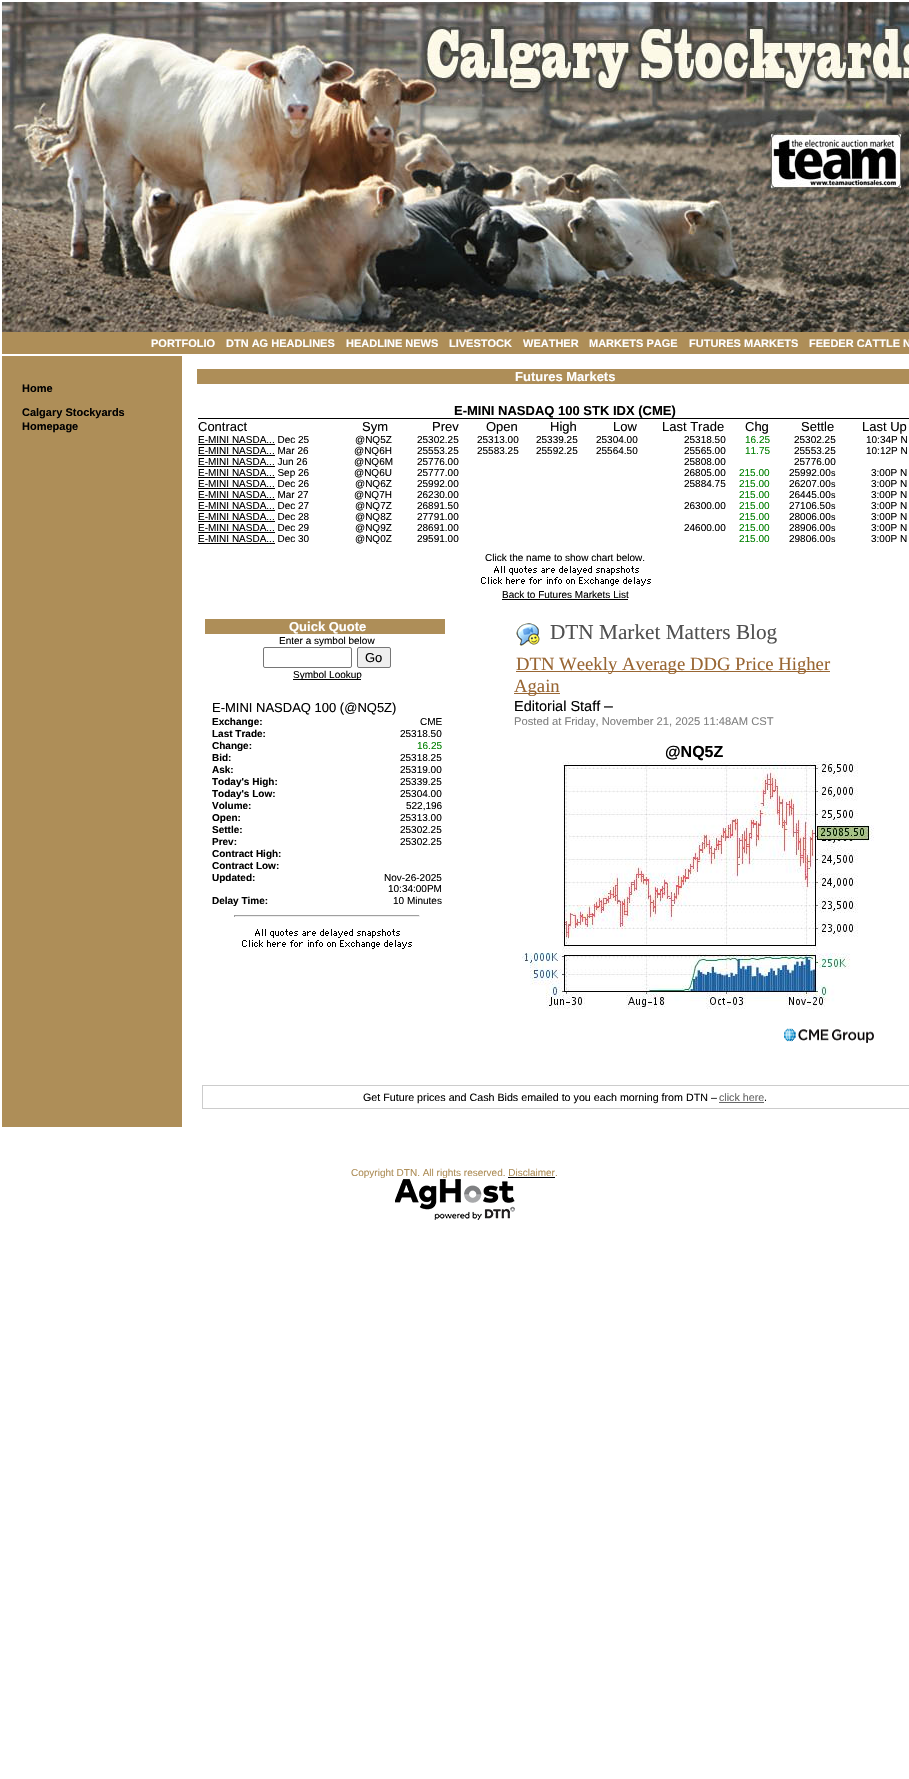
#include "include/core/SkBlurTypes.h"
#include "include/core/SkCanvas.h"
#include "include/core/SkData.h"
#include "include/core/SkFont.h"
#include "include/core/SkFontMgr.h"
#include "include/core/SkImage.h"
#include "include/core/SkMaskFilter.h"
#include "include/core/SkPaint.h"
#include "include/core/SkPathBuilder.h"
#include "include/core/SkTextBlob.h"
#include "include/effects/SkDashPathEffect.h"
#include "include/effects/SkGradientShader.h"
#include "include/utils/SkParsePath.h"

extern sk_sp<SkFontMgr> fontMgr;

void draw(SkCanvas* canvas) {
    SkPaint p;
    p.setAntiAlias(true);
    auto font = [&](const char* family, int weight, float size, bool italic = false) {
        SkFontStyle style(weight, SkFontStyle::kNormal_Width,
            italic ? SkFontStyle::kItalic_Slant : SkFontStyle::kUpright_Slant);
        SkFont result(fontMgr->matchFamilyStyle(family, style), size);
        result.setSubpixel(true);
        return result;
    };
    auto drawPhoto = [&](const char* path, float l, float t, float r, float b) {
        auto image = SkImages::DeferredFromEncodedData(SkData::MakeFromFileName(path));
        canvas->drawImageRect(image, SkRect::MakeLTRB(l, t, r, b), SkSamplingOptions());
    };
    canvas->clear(0xFFFFFFFF);
    drawPhoto("media/1.png", 2, 2, 909, 332);
    p.setColor(0xFFAE8E58);
    canvas->drawRect(SkRect::MakeLTRB(2, 332, 909, 354), p);
    auto font1 = font("Liberation Sans", 700, 11);
    p.setColor(0xFFFFFFFF);
    {
        const struct { const char* s; float x, y; } items[] = {
            {"PORTFOLIO", 151, 347},
            {"DTN AG HEADLINES", 226, 347},
            {"HEADLINE NEWS", 346, 347},
            {"LIVESTOCK", 449, 347},
            {"WEATHER", 523, 347},
            {"MARKETS PAGE", 589, 347},
            {"FUTURES MARKETS", 689, 347},
            {"FEEDER CATTLE N", 809, 347},
        };
        for (auto [s, x, y] : items) {
            canvas->drawString(s, x, y, font1, p);
        }
    }
    p.setColor(0xFFAE8E58);
    canvas->drawRect(SkRect::MakeLTRB(2, 356, 182, 1127), p);
    p.setColor(0xFF000000);
    {
        const struct { const char* s; float x, y; } items[] = {
            {"Home", 22, 392},
            {"Calgary Stockyards", 22, 416},
            {"Homepage", 22, 430},
        };
        for (auto [s, x, y] : items) {
            canvas->drawString(s, x, y, font1, p);
        }
    }
    p.setColor(0xFFAE8E58);
    canvas->drawRect(SkRect::MakeLTRB(197, 369, 909, 384), p);
    auto font2 = font("Liberation Sans", 700, 13);
    p.setColor(0xFFFFFFFF);
    canvas->drawString("Futures Markets", 515, 381, font2, p);
    p.setColor(0xFF000000);
    canvas->drawRect(SkRect::MakeLTRB(198, 418, 909, 419), p);
    canvas->drawString("E-MINI NASDAQ 100 STK IDX (CME)", 454, 415, font2, p);
    auto font3 = font("Liberation Sans", 400, 13);
    {
        const struct { const char* s; float x, y; } items[] = {
            {"Contract", 198, 431},
            {"Sym", 362, 431},
            {"Prev", 432, 431},
            {"Open", 486, 431},
            {"High", 550, 431},
            {"Low", 613, 431},
            {"Last Trade", 662, 431},
            {"Chg", 745, 431},
            {"Settle", 801, 431},
            {"Last Up", 862, 431},
        };
        for (auto [s, x, y] : items) {
            canvas->drawString(s, x, y, font3, p);
        }
    }
    auto font4 = font("Liberation Sans", 400, 10);
    canvas->drawString("E-MINI NASDA... Dec 25", 198, 443, font4, p);
    canvas->drawRect(SkRect::MakeLTRB(198, 444, 275, 445), p);
    {
        const struct { const char* s; float x, y; } items[] = {
            {"@NQ5Z", 355, 443},
            {"25302.25", 417, 443},
            {"25313.00", 477, 443},
            {"25339.25", 536, 443},
            {"25304.00", 596, 443},
            {"25318.50", 684, 443},
        };
        for (auto [s, x, y] : items) {
            canvas->drawString(s, x, y, font4, p);
        }
    }
    p.setColor(0xFF008000);
    canvas->drawString("16.25", 745, 443, font4, p);
    p.setColor(0xFF000000);
    {
        const struct { const char* s; float x, y; } items[] = {
            {"25302.25", 794, 443},
            {"10:34P N", 866, 443},
            {"E-MINI NASDA... Mar 26", 198, 454},
        };
        for (auto [s, x, y] : items) {
            canvas->drawString(s, x, y, font4, p);
        }
    }
    canvas->drawRect(SkRect::MakeLTRB(198, 455, 275, 456), p);
    {
        const struct { const char* s; float x, y; } items[] = {
            {"@NQ6H", 354, 454},
            {"25553.25", 417, 454},
            {"25583.25", 477, 454},
            {"25592.25", 536, 454},
            {"25564.50", 596, 454},
            {"25565.00", 684, 454},
        };
        for (auto [s, x, y] : items) {
            canvas->drawString(s, x, y, font4, p);
        }
    }
    p.setColor(0xFF008000);
    canvas->drawString("11.75", 745, 454, font4, p);
    p.setColor(0xFF000000);
    {
        const struct { const char* s; float x, y; } items[] = {
            {"25553.25", 794, 454},
            {"10:12P N", 866, 454},
            {"E-MINI NASDA... Jun 26", 198, 465},
        };
        for (auto [s, x, y] : items) {
            canvas->drawString(s, x, y, font4, p);
        }
    }
    canvas->drawRect(SkRect::MakeLTRB(198, 466, 275, 467), p);
    {
        const struct { const char* s; float x, y; } items[] = {
            {"@NQ6M", 354, 465},
            {"25776.00", 417, 465},
            {"25808.00", 684, 465},
            {"25776.00", 794, 465},
        };
        for (auto [s, x, y] : items) {
            canvas->drawString(s, x, y, font4, p);
        }
    }
    canvas->drawRect(SkRect::MakeLTRB(198, 477, 275, 478), p);
    {
        const struct { const char* s; float x, y; } items[] = {
            {"E-MINI NASDA... Sep 26", 198, 476},
            {"@NQ6U", 354, 476},
            {"25777.00", 417, 476},
            {"26805.00", 684, 476},
        };
        for (auto [s, x, y] : items) {
            canvas->drawString(s, x, y, font4, p);
        }
    }
    p.setColor(0xFF008000);
    canvas->drawString("215.00", 739, 476, font4, p);
    p.setColor(0xFF000000);
    canvas->drawString("25992.00", 789, 476, font4, p);
    auto font5 = font("Liberation Sans", 400, 9);
    canvas->drawString("s", 831, 476, font5, p);
    canvas->drawString("3:00P N", 871, 476, font4, p);
    canvas->drawString("E-MINI NASDA... Dec 26", 198, 487, font4, p);
    canvas->drawRect(SkRect::MakeLTRB(198, 488, 275, 489), p);
    {
        const struct { const char* s; float x, y; } items[] = {
            {"@NQ6Z", 355, 487},
            {"25992.00", 417, 487},
            {"25884.75", 684, 487},
        };
        for (auto [s, x, y] : items) {
            canvas->drawString(s, x, y, font4, p);
        }
    }
    p.setColor(0xFF008000);
    canvas->drawString("215.00", 739, 487, font4, p);
    p.setColor(0xFF000000);
    canvas->drawString("26207.00", 789, 487, font4, p);
    canvas->drawString("s", 831, 487, font5, p);
    canvas->drawString("3:00P N", 871, 487, font4, p);
    canvas->drawString("E-MINI NASDA... Mar 27", 198, 498, font4, p);
    canvas->drawRect(SkRect::MakeLTRB(198, 499, 275, 500), p);
    canvas->drawString("@NQ7H", 354, 498, font4, p);
    canvas->drawString("26230.00", 417, 498, font4, p);
    p.setColor(0xFF008000);
    canvas->drawString("215.00", 739, 498, font4, p);
    p.setColor(0xFF000000);
    canvas->drawString("26445.00", 789, 498, font4, p);
    canvas->drawString("s", 831, 498, font5, p);
    canvas->drawString("3:00P N", 871, 498, font4, p);
    canvas->drawString("E-MINI NASDA... Dec 27", 198, 509, font4, p);
    canvas->drawRect(SkRect::MakeLTRB(198, 510, 275, 511), p);
    {
        const struct { const char* s; float x, y; } items[] = {
            {"@NQ7Z", 355, 509},
            {"26891.50", 417, 509},
            {"26300.00", 684, 509},
        };
        for (auto [s, x, y] : items) {
            canvas->drawString(s, x, y, font4, p);
        }
    }
    p.setColor(0xFF008000);
    canvas->drawString("215.00", 739, 509, font4, p);
    p.setColor(0xFF000000);
    canvas->drawString("27106.50", 789, 509, font4, p);
    canvas->drawString("s", 831, 509, font5, p);
    canvas->drawString("3:00P N", 871, 509, font4, p);
    canvas->drawString("E-MINI NASDA... Dec 28", 198, 520, font4, p);
    canvas->drawRect(SkRect::MakeLTRB(198, 521, 275, 522), p);
    canvas->drawString("@NQ8Z", 355, 520, font4, p);
    canvas->drawString("27791.00", 417, 520, font4, p);
    p.setColor(0xFF008000);
    canvas->drawString("215.00", 739, 520, font4, p);
    p.setColor(0xFF000000);
    canvas->drawString("28006.00", 789, 520, font4, p);
    canvas->drawString("s", 831, 520, font5, p);
    canvas->drawString("3:00P N", 871, 520, font4, p);
    canvas->drawString("E-MINI NASDA... Dec 29", 198, 531, font4, p);
    canvas->drawRect(SkRect::MakeLTRB(198, 532, 275, 533), p);
    {
        const struct { const char* s; float x, y; } items[] = {
            {"@NQ9Z", 355, 531},
            {"28691.00", 417, 531},
            {"24600.00", 684, 531},
        };
        for (auto [s, x, y] : items) {
            canvas->drawString(s, x, y, font4, p);
        }
    }
    p.setColor(0xFF008000);
    canvas->drawString("215.00", 739, 531, font4, p);
    p.setColor(0xFF000000);
    canvas->drawString("28906.00", 789, 531, font4, p);
    canvas->drawString("s", 831, 531, font5, p);
    canvas->drawString("3:00P N", 871, 531, font4, p);
    canvas->drawString("E-MINI NASDA... Dec 30", 198, 542, font4, p);
    canvas->drawRect(SkRect::MakeLTRB(198, 543, 275, 544), p);
    canvas->drawString("@NQ0Z", 355, 542, font4, p);
    canvas->drawString("29591.00", 417, 542, font4, p);
    p.setColor(0xFF008000);
    canvas->drawString("215.00", 739, 542, font4, p);
    p.setColor(0xFF000000);
    canvas->drawString("29806.00", 789, 542, font4, p);
    canvas->drawString("s", 831, 542, font5, p);
    canvas->drawString("3:00P N", 871, 542, font4, p);
    canvas->drawString("Click the name to show chart below.", 485, 561, font4, p);
    drawPhoto("media/2.png", 481, 566, 651, 586);
    canvas->drawString("Back to Futures Markets List", 502, 598, font4, p);
    canvas->drawRect(SkRect::MakeLTRB(502, 599, 628, 600), p);
    p.setColor(0xFFAE8E58);
    canvas->drawRect(SkRect::MakeLTRB(205, 619, 445, 634), p);
    p.setColor(0xFFFFFFFF);
    canvas->drawString("Quick Quote", 289, 631, font2, p);
    p.setColor(0xFF000000);
    canvas->drawString("Enter a symbol below", 279, 644, font4, p);
    p.setStyle(SkPaint::kStroke_Style);
    p.setStrokeWidth(1);
    p.setColor(0xFF767676);
    canvas->drawRoundRect(SkRect::MakeLTRB(263.5f, 647.5f, 351.5f, 667.5f), 1.5f, 1.5f, p);
    p.setStyle(SkPaint::kFill_Style);
    p.setColor(0xFFEFEFEF);
    canvas->drawRoundRect(SkRect::MakeLTRB(357.5f, 647.5f, 390.5f, 667.5f), 1.5f, 1.5f, p);
    p.setStyle(SkPaint::kStroke_Style);
    p.setColor(0xFF767676);
    canvas->drawRoundRect(SkRect::MakeLTRB(357.5f, 647.5f, 390.5f, 667.5f), 1.5f, 1.5f, p);
    p.setStyle(SkPaint::kFill_Style);
    p.setColor(0xFF000000);
    canvas->drawString("Go", 365, 662, font3, p);
    canvas->drawRect(SkRect::MakeLTRB(293, 679, 361, 680), p);
    canvas->drawString("Symbol Lookup", 293, 678, font4, p);
    canvas->drawString("E-MINI NASDAQ 100 (@NQ5Z)", 212, 712, font3, p);
    auto font6 = font("Liberation Sans", 700, 10);
    canvas->drawString("Exchange:", 212, 725, font6, p);
    canvas->drawString("CME", 420, 725, font4, p);
    canvas->drawString("Last Trade:", 212, 737, font6, p);
    canvas->drawString("25318.50", 400, 737, font4, p);
    canvas->drawString("Change:", 212, 749, font6, p);
    p.setColor(0xFF008000);
    canvas->drawString("16.25", 417, 749, font4, p);
    p.setColor(0xFF000000);
    canvas->drawString("Bid:", 212, 761, font6, p);
    canvas->drawString("25318.25", 400, 761, font4, p);
    canvas->drawString("Ask:", 212, 773, font6, p);
    canvas->drawString("25319.00", 400, 773, font4, p);
    canvas->drawString("Today's High:", 212, 785, font6, p);
    canvas->drawString("25339.25", 400, 785, font4, p);
    canvas->drawString("Today's Low:", 212, 797, font6, p);
    canvas->drawString("25304.00", 400, 797, font4, p);
    canvas->drawString("Volume:", 212, 809, font6, p);
    canvas->drawString("522,196", 406, 809, font4, p);
    canvas->drawString("Open:", 212, 821, font6, p);
    canvas->drawString("25313.00", 400, 821, font4, p);
    canvas->drawString("Settle:", 212, 833, font6, p);
    canvas->drawString("25302.25", 400, 833, font4, p);
    canvas->drawString("Prev:", 212, 845, font6, p);
    canvas->drawString("25302.25", 400, 845, font4, p);
    {
        const struct { const char* s; float x, y; } items[] = {
            {"Contract High:", 212, 857},
            {"Contract Low:", 212, 869},
            {"Updated:", 212, 881},
        };
        for (auto [s, x, y] : items) {
            canvas->drawString(s, x, y, font6, p);
        }
    }
    canvas->drawString("Nov-26-2025", 384, 881, font4, p);
    canvas->drawString("10:34:00PM", 388, 892, font4, p);
    canvas->drawString("Delay Time:", 212, 904, font6, p);
    canvas->drawString("10 Minutes", 393, 904, font4, p);
    {
        const struct { float l, t, r, b; SkColor color; } items[] = {
            {234, 915, 420, 916, 0xFF9F9F9F},
            {419, 915, 420, 917, 0xFFEEEEEE},
            {234, 916, 420, 917, 0xFFEEEEEE},
            {234, 915, 235, 917, 0xFF9F9F9F},
        };
        for (auto [l, t, r, b, color] : items) {
            p.setColor(color);
            canvas->drawRect(SkRect::MakeLTRB(l, t, r, b), p);
        }
    }
    drawPhoto("media/2.png", 242, 929, 412, 949);
    drawPhoto("media/3.png", 516, 623, 540, 646);
    auto font7 = font("Liberation Serif", 400, 21.25f);
    p.setColor(0xFF505050);
    canvas->drawString("DTN Market Matters Blog", 550, 639, font7, p);
    p.setColor(0xFF996633);
    canvas->drawRect(SkRect::MakeLTRB(516, 671, 830, 672), p);
    auto font8 = font("Liberation Serif", 400, 18.7f);
    canvas->drawString("DTN Weekly Average DDG Price Higher", 516, 670, font8, p);
    canvas->drawRect(SkRect::MakeLTRB(514, 693, 560, 694), p);
    canvas->drawString("Again", 514, 692, font8, p);
    auto font9 = font("Liberation Sans", 400, 14.5f);
    p.setColor(0xFF000000);
    canvas->drawString("Editorial Staff", 514, 711, font9, p);
    auto font10 = font("Liberation Sans", 400, 16);
    canvas->drawString("–", 604, 711, font10, p);
    auto font11 = font("Liberation Sans", 400, 11.2f);
    p.setColor(0xFF808080);
    canvas->drawString("Posted at Friday, November 21, 2025 11:48AM CST", 514, 725, font11, p);
    auto font12 = font("Liberation Sans", 700, 16);
    p.setColor(0xFF000000);
    canvas->drawString("@NQ5Z", 665, 757, font12, p);
    drawPhoto("media/4.png", 522, 761, 874, 1009);
    drawPhoto("media/5.png", 784, 1028, 874, 1043);
    p.setStyle(SkPaint::kStroke_Style);
    p.setColor(0xFFCCCCCC);
    canvas->drawRect(SkRect::MakeLTRB(202.5f, 1085.5f, 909.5f, 1108.5f), p);
    auto font13 = font("Liberation Sans", 400, 10.7f);
    p.setStyle(SkPaint::kFill_Style);
    p.setColor(0xFF000000);
    canvas->drawString("Get Future prices and Cash Bids emailed to you each morning from DTN –", 363, 1101, font13, p);
    p.setColor(0xFF666666);
    canvas->drawString("click here", 719, 1101, font13, p);
    canvas->drawRect(SkRect::MakeLTRB(719, 1102, 764, 1103), p);
    p.setColor(0xFF000000);
    canvas->drawString(".", 764, 1101, font13, p);
    p.setColor(0xFFAE8E58);
    canvas->drawString("Copyright DTN. All rights reserved. Disclaimer.", 351, 1176, font4, p);
    p.setColor(0xFF000000);
    canvas->drawRect(SkRect::MakeLTRB(508, 1177, 555, 1178), p);
    drawPhoto("media/6.png", 395, 1179, 515, 1220);
}
